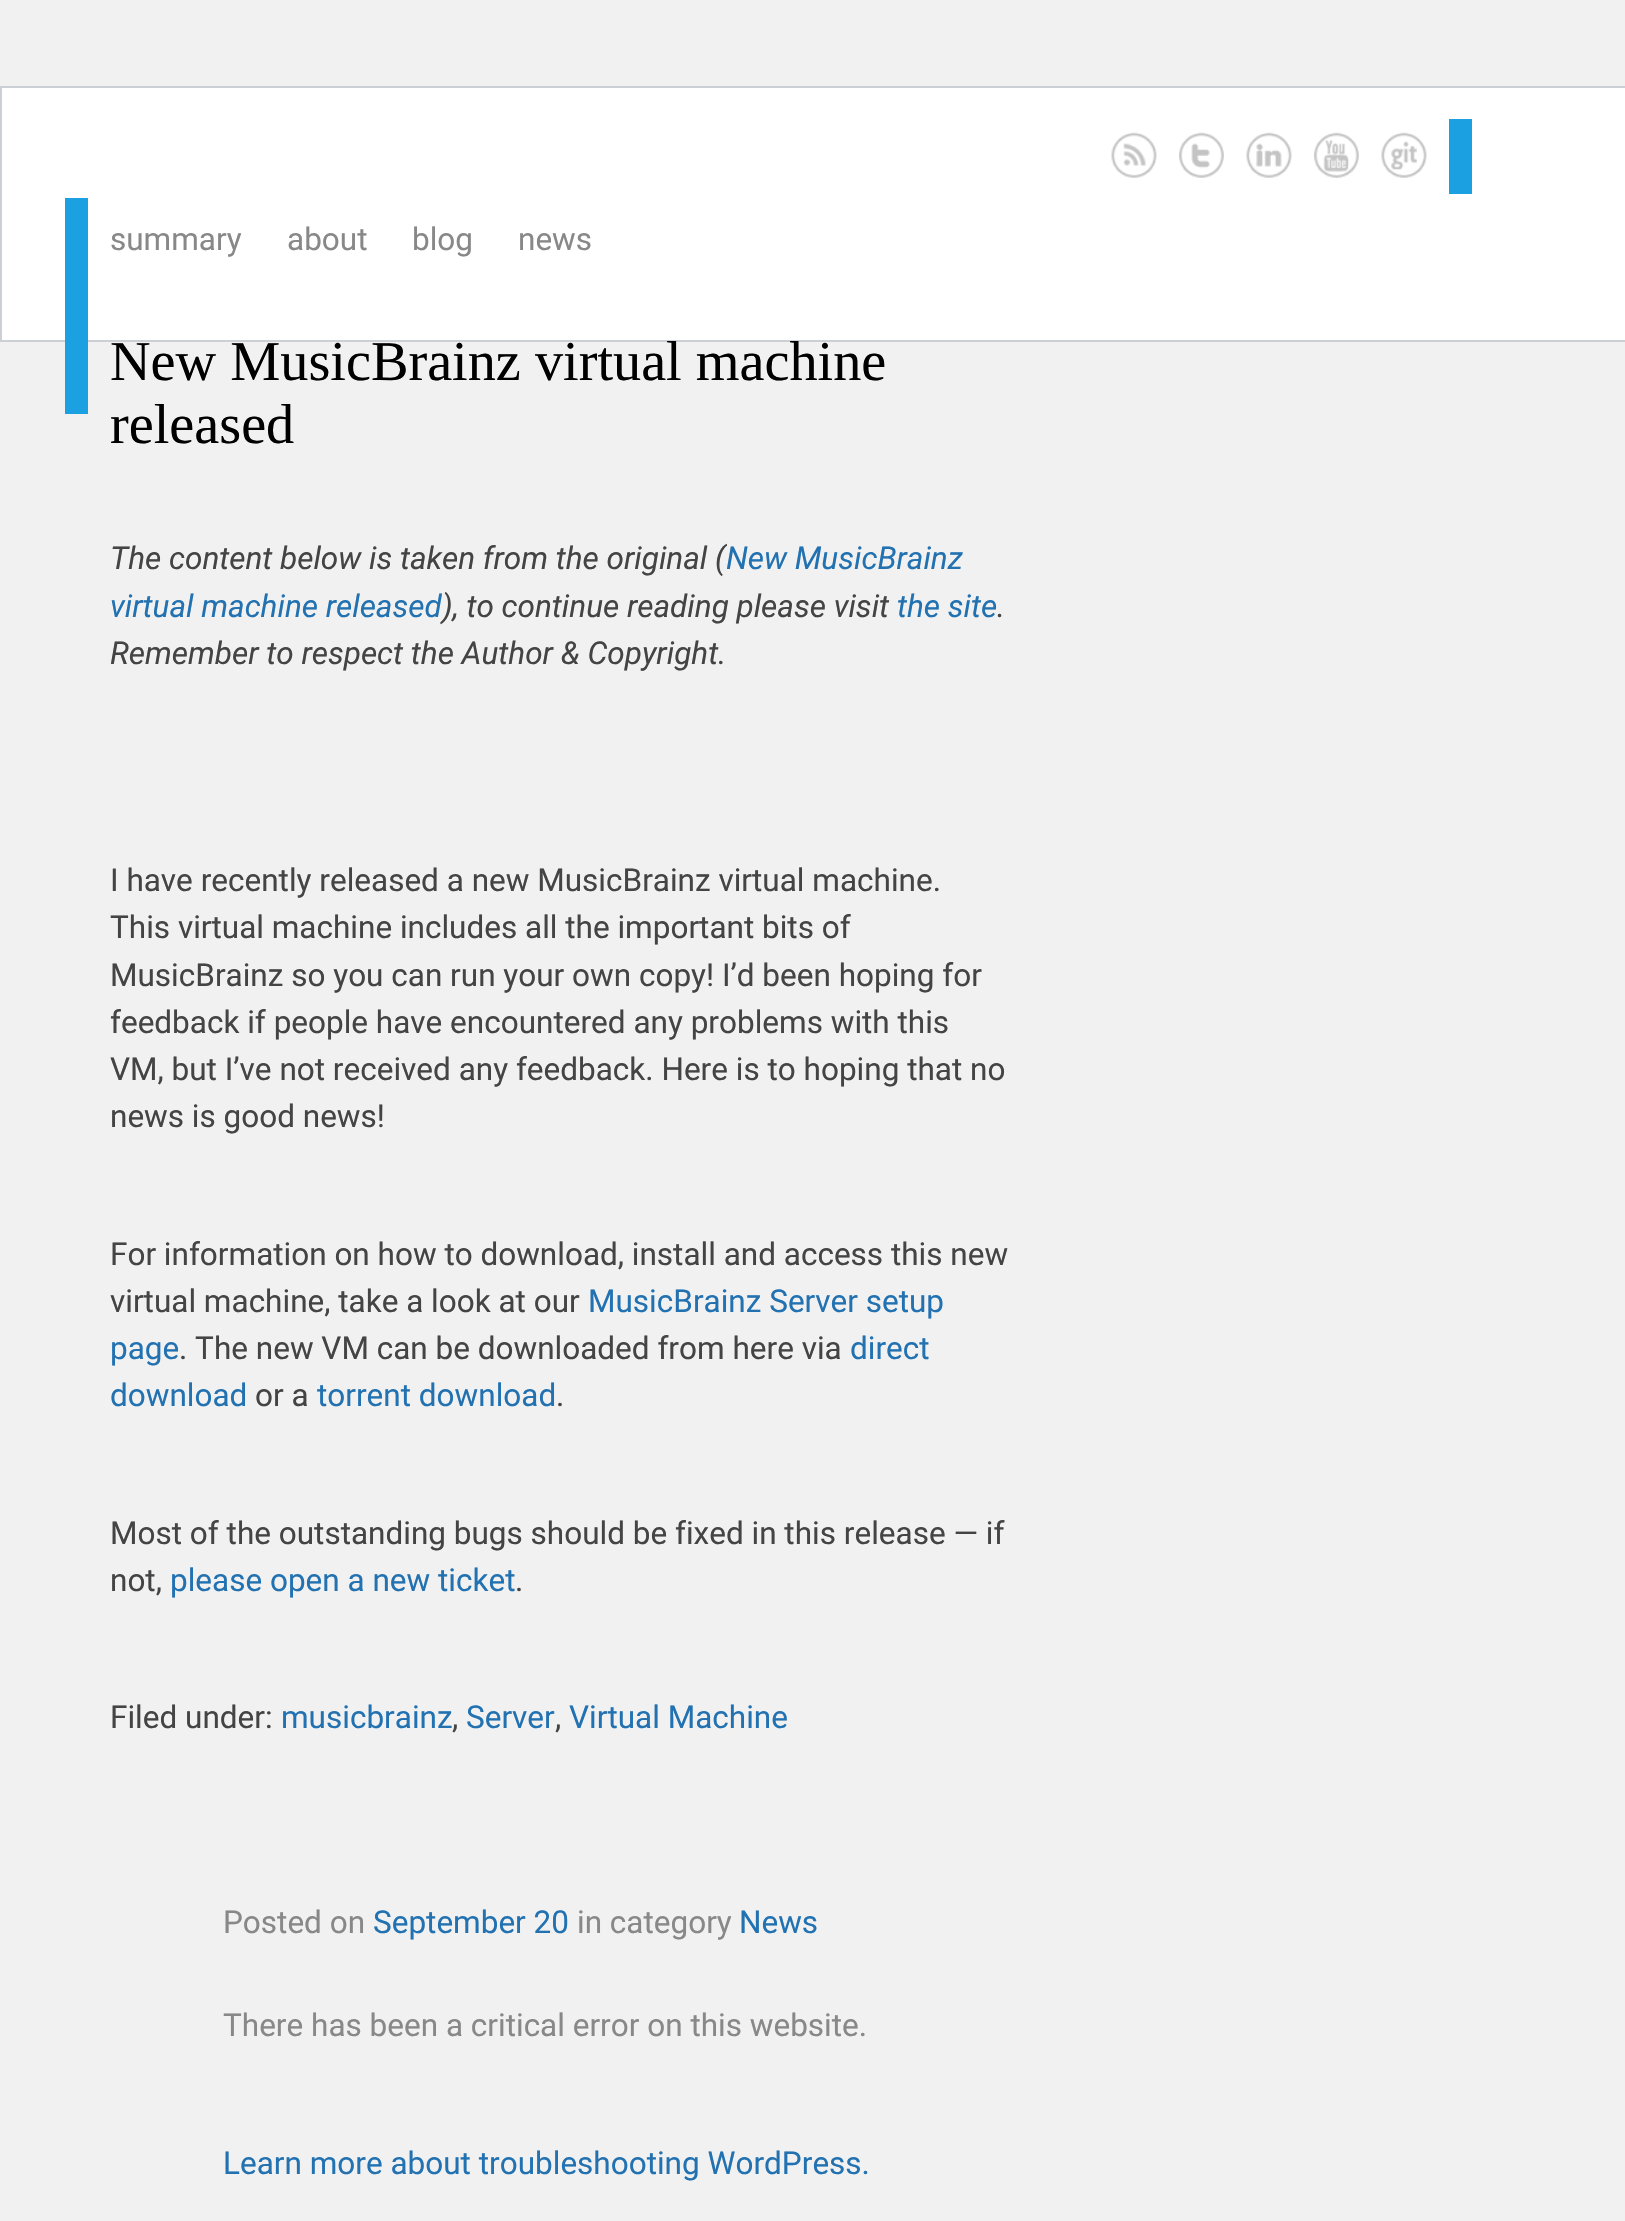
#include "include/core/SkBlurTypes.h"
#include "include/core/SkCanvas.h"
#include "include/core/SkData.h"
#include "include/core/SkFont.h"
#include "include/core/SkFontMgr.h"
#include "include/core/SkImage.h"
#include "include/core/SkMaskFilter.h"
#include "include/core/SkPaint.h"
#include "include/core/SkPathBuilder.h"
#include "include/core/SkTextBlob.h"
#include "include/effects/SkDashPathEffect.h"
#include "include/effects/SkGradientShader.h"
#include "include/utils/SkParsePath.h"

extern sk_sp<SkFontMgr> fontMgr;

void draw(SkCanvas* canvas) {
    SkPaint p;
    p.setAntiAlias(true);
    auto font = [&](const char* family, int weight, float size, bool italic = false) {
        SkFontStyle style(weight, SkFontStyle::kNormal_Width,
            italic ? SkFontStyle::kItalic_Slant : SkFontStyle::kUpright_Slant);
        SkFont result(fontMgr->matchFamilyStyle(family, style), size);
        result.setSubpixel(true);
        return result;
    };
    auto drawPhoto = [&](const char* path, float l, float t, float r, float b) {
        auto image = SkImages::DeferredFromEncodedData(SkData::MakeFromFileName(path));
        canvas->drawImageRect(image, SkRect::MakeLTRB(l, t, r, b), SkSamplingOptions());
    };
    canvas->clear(0xFFF1F1F1);
    p.setColor(0xFFFFFFFF);
    canvas->drawRect(SkRect::MakeLTRB(1, 87, 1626, 341), p);
    p.setStyle(SkPaint::kStroke_Style);
    p.setStrokeWidth(2);
    p.setColor(0xFFCCD0D4);
    canvas->drawRect(SkRect::MakeLTRB(1, 87, 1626, 341), p);
    p.setStyle(SkPaint::kFill_Style);
    p.setColor(0xFF1BA1E2);
    canvas->drawRect(SkRect::MakeLTRB(1449, 119, 1472, 194), p);
    drawPhoto("media/1.png", 1111, 132, 1157, 178);
    drawPhoto("media/2.png", 1179, 132, 1224, 178);
    drawPhoto("media/3.png", 1246, 132, 1292, 178);
    drawPhoto("media/4.png", 1314, 132, 1359, 178);
    drawPhoto("media/5.png", 1381, 132, 1427, 178);
    canvas->drawRect(SkRect::MakeLTRB(65, 198, 88, 414), p);
    auto font1 = font("Roboto", 400, 31.5f);
    p.setColor(0xFF888888);
    {
        const struct { const char* s; float x, y; } items[] = {
            {"summary", 110, 250},
            {"about", 287, 250},
            {"blog", 412, 250},
            {"news", 518, 250},
        };
        for (auto [s, x, y] : items) {
            canvas->drawString(s, x, y, font1, p);
        }
    }
    auto font2 = font("Liberation Serif", 400, 56.25f);
    p.setColor(0xFF000000);
    canvas->drawString("New MusicBrainz virtual machine", 110, 380, font2, p);
    canvas->drawString("released", 110, 443, font2, p);
    auto font3 = font("Roboto", 400, 31.5f, true);
    p.setColor(0xFF444444);
    canvas->drawString("The content below is taken from the original (", 110, 569, font3, p);
    p.setColor(0xFF2271B1);
    canvas->drawString("New MusicBrainz", 726, 569, font3, p);
    canvas->drawString("virtual machine released", 110, 617, font3, p);
    p.setColor(0xFF444444);
    canvas->drawString("), to continue reading please visit", 442, 617, font3, p);
    p.setColor(0xFF2271B1);
    canvas->drawString("the site", 897, 617, font3, p);
    p.setColor(0xFF444444);
    canvas->drawString(".", 997, 617, font3, p);
    canvas->drawString("Remember to respect the Author & Copyright.", 110, 664, font3, p);
    {
        const struct { const char* s; float x, y; } items[] = {
            {"I have recently released a new MusicBrainz virtual machine.", 110, 891},
            {"This virtual machine includes all the important bits of", 110, 938},
            {"MusicBrainz so you can run your own copy! I’d been hoping for", 110, 986},
            {"feedback if people have encountered any problems with this", 110, 1033},
            {"VM, but I’ve not received any feedback. Here is to hoping that no", 110, 1080},
            {"news is good news!", 110, 1127},
            {"For information on how to download, install and access this new", 110, 1265},
            {"virtual machine, take a look at our", 110, 1312},
        };
        for (auto [s, x, y] : items) {
            canvas->drawString(s, x, y, font1, p);
        }
    }
    p.setColor(0xFF2271B1);
    canvas->drawString("MusicBrainz Server setup", 588, 1312, font1, p);
    canvas->drawString("page", 110, 1359, font1, p);
    p.setColor(0xFF444444);
    canvas->drawString(". The new VM can be downloaded from here via", 179, 1359, font1, p);
    p.setColor(0xFF2271B1);
    canvas->drawString("direct", 850, 1359, font1, p);
    canvas->drawString("download", 110, 1406, font1, p);
    p.setColor(0xFF444444);
    canvas->drawString("or a", 255, 1406, font1, p);
    p.setColor(0xFF2271B1);
    canvas->drawString("torrent download", 317, 1406, font1, p);
    p.setColor(0xFF444444);
    {
        const struct { const char* s; float x, y; } items[] = {
            {".", 556, 1406},
            {"Most of the outstanding bugs should be fixed in this release — if", 110, 1544},
            {"not,", 110, 1591},
        };
        for (auto [s, x, y] : items) {
            canvas->drawString(s, x, y, font1, p);
        }
    }
    p.setColor(0xFF2271B1);
    canvas->drawString("please open a new ticket", 170, 1591, font1, p);
    p.setColor(0xFF444444);
    canvas->drawString(".", 515, 1591, font1, p);
    canvas->drawString("Filed under:", 110, 1728, font1, p);
    p.setColor(0xFF2271B1);
    canvas->drawString("musicbrainz", 281, 1728, font1, p);
    p.setColor(0xFF444444);
    canvas->drawString(",", 452, 1728, font1, p);
    p.setColor(0xFF2271B1);
    canvas->drawString("Server", 466, 1728, font1, p);
    p.setColor(0xFF444444);
    canvas->drawString(",", 555, 1728, font1, p);
    p.setColor(0xFF2271B1);
    canvas->drawString("Virtual Machine", 569, 1728, font1, p);
    p.setColor(0xFF888888);
    canvas->drawString("Posted on", 223, 1933, font1, p);
    p.setColor(0xFF2271B1);
    canvas->drawString("September 20", 373, 1933, font1, p);
    p.setColor(0xFF888888);
    canvas->drawString("in category", 577, 1933, font1, p);
    p.setColor(0xFF2271B1);
    canvas->drawString("News", 739, 1933, font1, p);
    p.setColor(0xFF888888);
    canvas->drawString("There has been a critical error on this website.", 223, 2036, font1, p);
    p.setColor(0xFF2271B1);
    canvas->drawString("Learn more about troubleshooting WordPress.", 223, 2174, font1, p);
}
